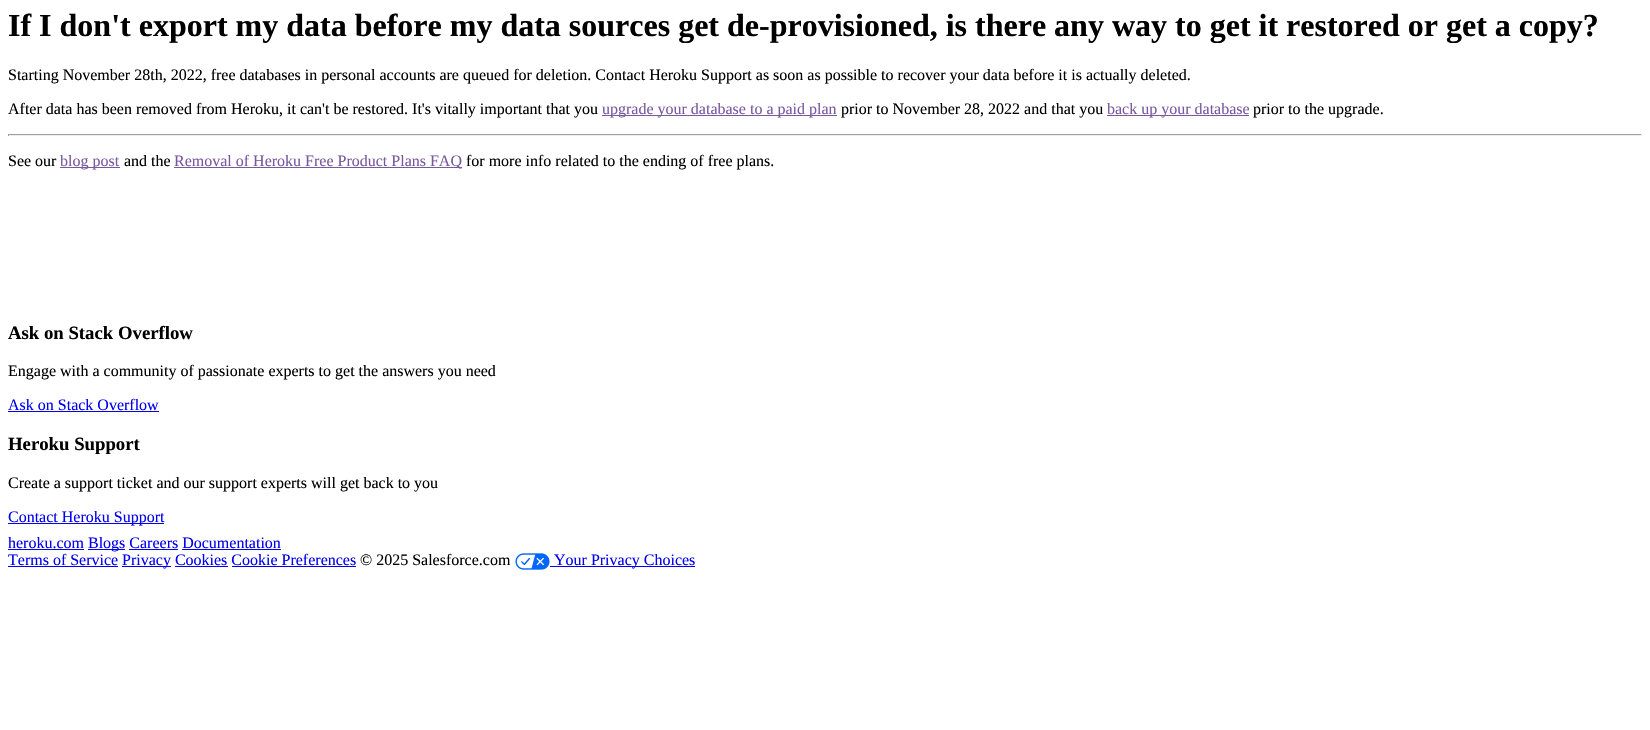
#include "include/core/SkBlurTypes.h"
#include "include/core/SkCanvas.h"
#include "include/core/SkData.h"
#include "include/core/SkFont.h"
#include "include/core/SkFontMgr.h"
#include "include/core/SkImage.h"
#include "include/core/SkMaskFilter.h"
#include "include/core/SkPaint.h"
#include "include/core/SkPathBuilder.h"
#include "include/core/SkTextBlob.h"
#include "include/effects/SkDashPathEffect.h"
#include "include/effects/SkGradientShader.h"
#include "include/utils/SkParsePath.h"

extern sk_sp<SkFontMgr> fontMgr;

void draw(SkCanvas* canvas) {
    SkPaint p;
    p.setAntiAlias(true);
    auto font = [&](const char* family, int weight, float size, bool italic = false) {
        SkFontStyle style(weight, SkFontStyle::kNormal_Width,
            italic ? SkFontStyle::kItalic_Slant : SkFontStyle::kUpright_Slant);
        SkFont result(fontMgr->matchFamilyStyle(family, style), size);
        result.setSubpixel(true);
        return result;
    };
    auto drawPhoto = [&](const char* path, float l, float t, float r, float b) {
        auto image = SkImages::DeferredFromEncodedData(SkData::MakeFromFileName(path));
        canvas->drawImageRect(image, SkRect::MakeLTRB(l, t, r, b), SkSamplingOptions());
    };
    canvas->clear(0xFFFFFFFF);
    auto font1 = font("Liberation Serif", 700, 32);
    p.setColor(0xFF000000);
    canvas->drawString("If I don't export my data before my data sources get de-provisioned, is there any way to get it restored or get a copy?", 8, 36, font1, p);
    auto font2 = font("Liberation Serif", 400, 16);
    canvas->drawString("Starting November 28th, 2022, free databases in personal accounts are queued for deletion. Contact Heroku Support as soon as possible to recover your data before it is actually deleted.", 8, 80, font2, p);
    canvas->drawString("After data has been removed from Heroku, it can't be restored. It's vitally important that you", 8, 114, font2, p);
    p.setColor(0xFF79589F);
    canvas->drawRect(SkRect::MakeLTRB(602, 115, 837, 116), p);
    canvas->drawString("upgrade your database to a paid plan", 602, 114, font2, p);
    p.setColor(0xFF000000);
    canvas->drawString("prior to November 28, 2022 and that you", 841, 114, font2, p);
    p.setColor(0xFF79589F);
    canvas->drawRect(SkRect::MakeLTRB(1107, 115, 1249, 116), p);
    canvas->drawString("back up your database", 1107, 114, font2, p);
    p.setColor(0xFF000000);
    canvas->drawString("prior to the upgrade.", 1253, 114, font2, p);
    {
        const struct { float l, t, r, b; SkColor color; } items[] = {
            {8, 134, 1642, 135, 0xFF9F9F9F},
            {1641, 134, 1642, 136, 0xFFEEEEEE},
            {8, 135, 1642, 136, 0xFFEEEEEE},
            {8, 134, 9, 136, 0xFF9F9F9F},
        };
        for (auto [l, t, r, b, color] : items) {
            p.setColor(color);
            canvas->drawRect(SkRect::MakeLTRB(l, t, r, b), p);
        }
    }
    p.setColor(0xFF000000);
    canvas->drawString("See our", 8, 166, font2, p);
    p.setColor(0xFF79589F);
    canvas->drawRect(SkRect::MakeLTRB(60, 167, 120, 168), p);
    canvas->drawString("blog post", 60, 166, font2, p);
    p.setColor(0xFF000000);
    canvas->drawString("and the", 124, 166, font2, p);
    p.setColor(0xFF79589F);
    canvas->drawRect(SkRect::MakeLTRB(174, 167, 462, 168), p);
    canvas->drawString("Removal of Heroku Free Product Plans FAQ", 174, 166, font2, p);
    p.setColor(0xFF000000);
    canvas->drawString("for more info related to the ending of free plans.", 466, 166, font2, p);
    auto font3 = font("Liberation Serif", 700, 18.75f);
    canvas->drawString("Ask on Stack Overflow", 8, 339, font3, p);
    canvas->drawString("Engage with a community of passionate experts to get the answers you need", 8, 376, font2, p);
    p.setColor(0xFF0000EE);
    canvas->drawString("Ask on Stack Overflow", 8, 410, font2, p);
    canvas->drawRect(SkRect::MakeLTRB(8, 411, 159, 412), p);
    p.setColor(0xFF000000);
    canvas->drawString("Heroku Support", 8, 450, font3, p);
    canvas->drawString("Create a support ticket and our support experts will get back to you", 8, 488, font2, p);
    p.setColor(0xFF0000EE);
    canvas->drawRect(SkRect::MakeLTRB(8, 523, 164, 524), p);
    canvas->drawString("Contact Heroku Support", 8, 522, font2, p);
    canvas->drawString("heroku.com", 8, 548, font2, p);
    canvas->drawRect(SkRect::MakeLTRB(8, 549, 84, 550), p);
    canvas->drawRect(SkRect::MakeLTRB(88, 549, 125, 550), p);
    canvas->drawString("Blogs Careers Documentation", 88, 548, font2, p);
    canvas->drawRect(SkRect::MakeLTRB(129, 549, 178, 550), p);
    canvas->drawRect(SkRect::MakeLTRB(182, 549, 281, 550), p);
    canvas->drawString("Terms of Service", 8, 565, font2, p);
    canvas->drawRect(SkRect::MakeLTRB(8, 566, 118, 567), p);
    canvas->drawRect(SkRect::MakeLTRB(122, 566, 171, 567), p);
    canvas->drawString("Privacy Cookies Cookie Preferences", 122, 565, font2, p);
    p.setColor(0xFF000000);
    canvas->drawString("© 2025 Salesforce.com", 360, 565, font2, p);
    drawPhoto("media/1.png", 515, 553, 550, 570);
    p.setColor(0xFF0000EE);
    canvas->drawRect(SkRect::MakeLTRB(550, 566, 695, 567), p);
    canvas->drawString("Your Privacy Choices", 554, 565, font2, p);
    canvas->drawRect(SkRect::MakeLTRB(175, 566, 228, 567), p);
    canvas->drawRect(SkRect::MakeLTRB(232, 566, 356, 567), p);
}
